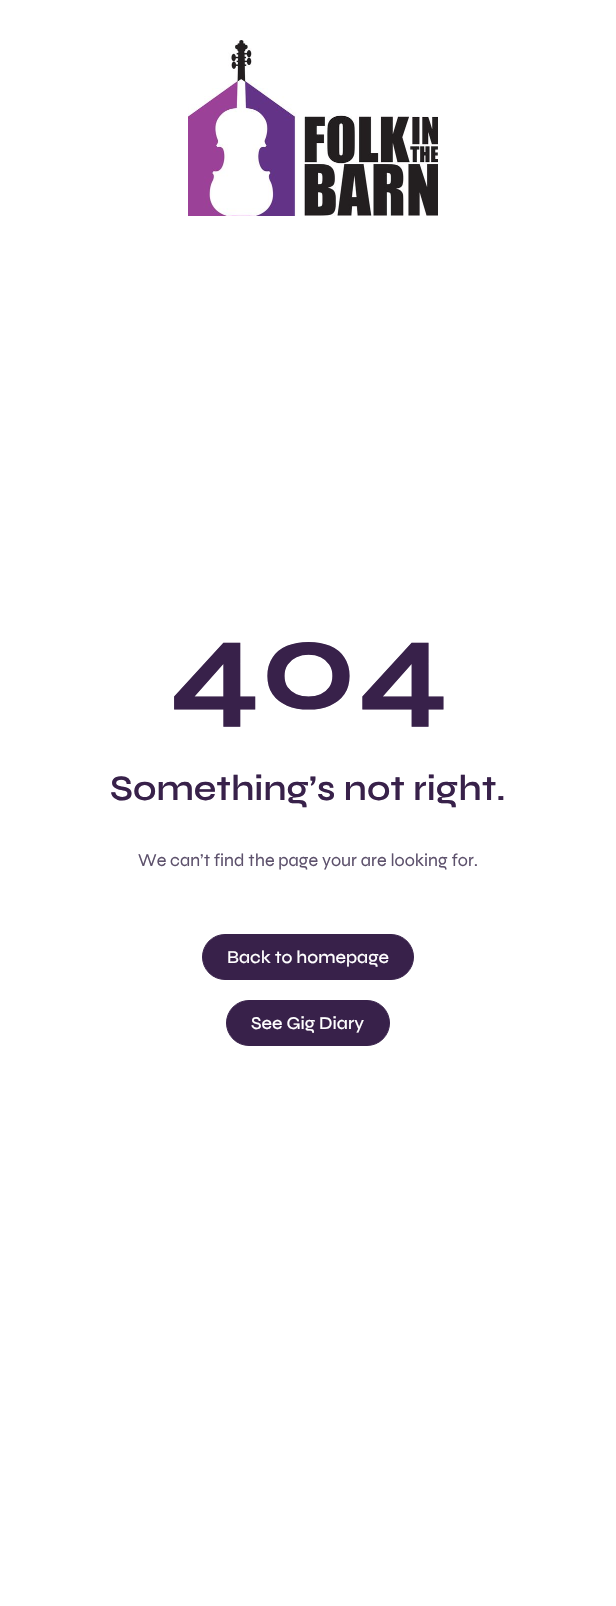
#include "include/core/SkBlurTypes.h"
#include "include/core/SkCanvas.h"
#include "include/core/SkData.h"
#include "include/core/SkFont.h"
#include "include/core/SkFontMgr.h"
#include "include/core/SkImage.h"
#include "include/core/SkMaskFilter.h"
#include "include/core/SkPaint.h"
#include "include/core/SkPathBuilder.h"
#include "include/core/SkTextBlob.h"
#include "include/effects/SkDashPathEffect.h"
#include "include/effects/SkGradientShader.h"
#include "include/utils/SkParsePath.h"

extern sk_sp<SkFontMgr> fontMgr;

void draw(SkCanvas* canvas) {
    SkPaint p;
    p.setAntiAlias(true);
    auto font = [&](const char* family, int weight, float size, bool italic = false) {
        SkFontStyle style(weight, SkFontStyle::kNormal_Width,
            italic ? SkFontStyle::kItalic_Slant : SkFontStyle::kUpright_Slant);
        SkFont result(fontMgr->matchFamilyStyle(family, style), size);
        result.setSubpixel(true);
        return result;
    };
    auto drawPhoto = [&](const char* path, float l, float t, float r, float b) {
        auto image = SkImages::DeferredFromEncodedData(SkData::MakeFromFileName(path));
        canvas->drawImageRect(image, SkRect::MakeLTRB(l, t, r, b), SkSamplingOptions());
    };
    canvas->clear(0xFFFFFFFF);
    drawPhoto("media/1.png", 188, 40, 438, 216);
    auto font1 = font("Syne", 700, 130);
    p.setColor(0xFF38214A);
    canvas->drawString("404", 168, 708, font1, p);
    auto font2 = font("Syne", 600, 36);
    canvas->drawString("Something’s not right.", 110, 800, font2, p);
    auto font3 = font("Syne", 400, 18);
    p.setColor(0xFF5D516C);
    canvas->drawString("We can’t find the page your are looking for.", 138, 866, font3, p);
    p.setColor(0xFF38214A);
    canvas->drawRoundRect(SkRect::MakeLTRB(202.5f, 934.5f, 413.5f, 979.5f), 22.5f, 22.5f, p);
    p.setStyle(SkPaint::kStroke_Style);
    p.setStrokeWidth(1);
    canvas->drawRoundRect(SkRect::MakeLTRB(202.5f, 934.5f, 413.5f, 979.5f), 22.5f, 22.5f, p);
    auto font4 = font("Syne", 500, 18);
    p.setStyle(SkPaint::kFill_Style);
    p.setColor(0xFFFFFFFF);
    canvas->drawString("Back to homepage", 227, 963, font4, p);
    p.setColor(0xFF38214A);
    canvas->drawRoundRect(SkRect::MakeLTRB(226.5f, 1000.5f, 389.5f, 1045.5f), 22.5f, 22.5f, p);
    p.setStyle(SkPaint::kStroke_Style);
    canvas->drawRoundRect(SkRect::MakeLTRB(226.5f, 1000.5f, 389.5f, 1045.5f), 22.5f, 22.5f, p);
    p.setStyle(SkPaint::kFill_Style);
    p.setColor(0xFFFFFFFF);
    canvas->drawString("See Gig Diary", 251, 1029, font4, p);
}
